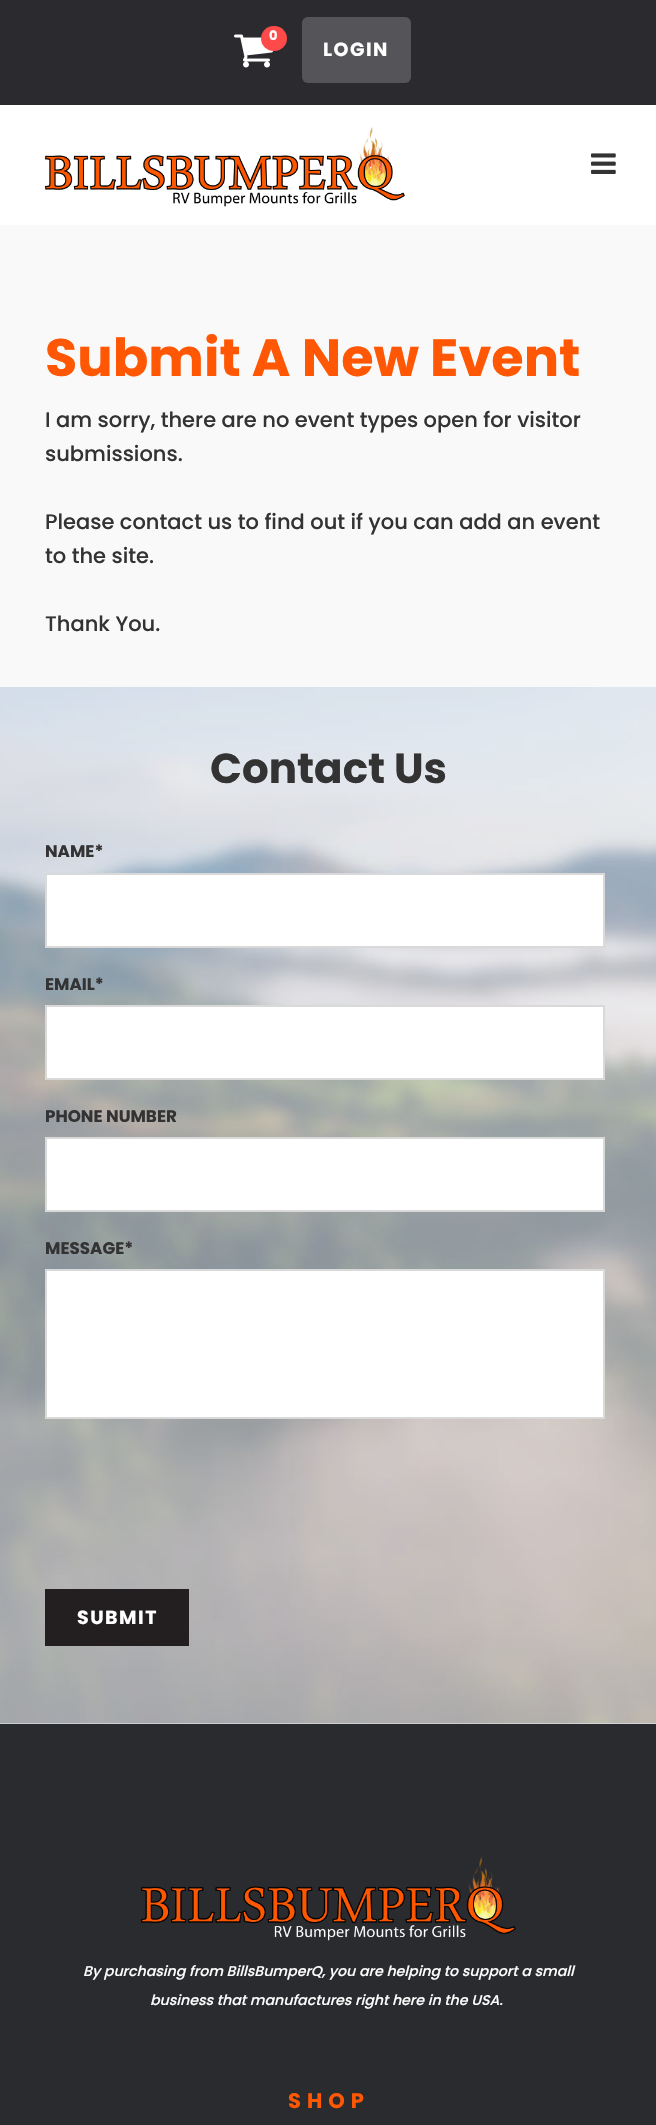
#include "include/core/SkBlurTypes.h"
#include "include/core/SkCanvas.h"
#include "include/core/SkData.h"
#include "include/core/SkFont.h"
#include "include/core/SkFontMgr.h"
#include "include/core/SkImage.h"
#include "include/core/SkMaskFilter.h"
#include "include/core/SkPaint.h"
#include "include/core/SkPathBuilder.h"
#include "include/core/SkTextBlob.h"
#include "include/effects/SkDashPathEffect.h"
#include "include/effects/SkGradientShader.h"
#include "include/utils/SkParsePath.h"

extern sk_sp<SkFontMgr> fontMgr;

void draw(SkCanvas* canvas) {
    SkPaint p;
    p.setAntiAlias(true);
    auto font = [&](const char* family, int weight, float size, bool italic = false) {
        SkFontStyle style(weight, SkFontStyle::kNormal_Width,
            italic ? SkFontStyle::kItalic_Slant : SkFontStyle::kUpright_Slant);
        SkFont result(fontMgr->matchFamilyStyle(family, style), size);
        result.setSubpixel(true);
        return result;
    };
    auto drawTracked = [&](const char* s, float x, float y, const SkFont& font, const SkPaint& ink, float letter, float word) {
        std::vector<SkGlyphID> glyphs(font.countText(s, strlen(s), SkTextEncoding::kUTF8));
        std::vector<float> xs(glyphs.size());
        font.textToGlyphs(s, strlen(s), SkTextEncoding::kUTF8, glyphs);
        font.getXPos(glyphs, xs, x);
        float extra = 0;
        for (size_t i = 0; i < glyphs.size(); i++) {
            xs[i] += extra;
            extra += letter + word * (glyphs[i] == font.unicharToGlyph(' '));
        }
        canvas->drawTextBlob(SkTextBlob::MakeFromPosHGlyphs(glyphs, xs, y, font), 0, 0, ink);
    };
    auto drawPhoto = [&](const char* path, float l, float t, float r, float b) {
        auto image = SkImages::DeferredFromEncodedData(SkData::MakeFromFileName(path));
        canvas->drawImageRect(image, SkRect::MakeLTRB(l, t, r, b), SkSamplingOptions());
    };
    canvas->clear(0xFFFFFFFF);
    p.setColor(0xFFECF3FA);
    canvas->drawRect(SkRect::MakeLTRB(0, 1723, 656, 1724), p);
    p.setColor(0xFF2A2A2F);
    canvas->drawRect(SkRect::MakeLTRB(0, 0, 656, 105), p);
    drawPhoto("media/1.png", 234, 34, 273, 68);
    p.setColor(0xFFFE4A49);
    canvas->drawRoundRect(SkRect::MakeLTRB(261, 26, 287, 51), 12.5f, 12.5f, p);
    auto font1 = font("Poppins", 700, 13);
    p.setColor(0xFFFFFFFF);
    canvas->drawString("0", 269, 40, font1, p);
    p.setColor(0xFF555559);
    canvas->drawRoundRect(SkRect::MakeLTRB(302, 17, 411, 83), 6, 6, p);
    auto font2 = font("Poppins", 700, 19);
    p.setColor(0xFFFFFFFF);
    drawTracked("LOGIN", 323, 56, font2, p, 1.5f, 0);
    drawPhoto("media/2.png", 45, 126, 405, 207);
    drawPhoto("media/3.png", 591, 153, 616, 174);
    p.setColor(0xFFF9F9F9);
    canvas->drawRect(SkRect::MakeLTRB(0, 225, 656, 687), p);
    auto font3 = font("Poppins", 700, 52.5f);
    p.setColor(0xFFFF5704);
    canvas->drawString("Submit A New Event", 45, 376, font3, p);
    auto font4 = font("Poppins", 500, 21);
    p.setColor(0xFF333333);
    {
        const struct { const char* s; float x, y; } items[] = {
            {"I am sorry, there are no event types open for visitor", 45, 427},
            {"submissions.", 45, 461},
            {"Please contact us to find out if you can add an event", 45, 529},
            {"to the site.", 45, 563},
            {"Thank You.", 45, 631},
        };
        for (auto [s, x, y] : items) {
            canvas->drawString(s, x, y, font4, p);
        }
    }
    drawPhoto("media/4.png", 0, 687, 656, 1724);
    auto font5 = font("Poppins", 700, 42);
    canvas->drawString("Contact Us", 210, 783, font5, p);
    auto font6 = font("Poppins", 700, 16.75f);
    canvas->drawString("NAME*", 45, 857, font6, p);
    p.setColor(0xFFFFFFFF);
    canvas->drawRect(SkRect::MakeLTRB(46, 874, 604, 947), p);
    p.setStyle(SkPaint::kStroke_Style);
    p.setStrokeWidth(2);
    p.setColor(0xFFD9D9D9);
    canvas->drawRect(SkRect::MakeLTRB(46, 874, 604, 947), p);
    p.setStyle(SkPaint::kFill_Style);
    p.setColor(0xFF333333);
    canvas->drawString("EMAIL*", 45, 990, font6, p);
    p.setColor(0xFFFFFFFF);
    canvas->drawRect(SkRect::MakeLTRB(46, 1006, 604, 1079), p);
    p.setStyle(SkPaint::kStroke_Style);
    p.setColor(0xFFD9D9D9);
    canvas->drawRect(SkRect::MakeLTRB(46, 1006, 604, 1079), p);
    p.setStyle(SkPaint::kFill_Style);
    p.setColor(0xFF333333);
    canvas->drawString("PHONE NUMBER", 45, 1122, font6, p);
    p.setColor(0xFFFFFFFF);
    canvas->drawRect(SkRect::MakeLTRB(46, 1138, 604, 1211), p);
    p.setStyle(SkPaint::kStroke_Style);
    p.setColor(0xFFD9D9D9);
    canvas->drawRect(SkRect::MakeLTRB(46, 1138, 604, 1211), p);
    p.setStyle(SkPaint::kFill_Style);
    p.setColor(0xFF333333);
    canvas->drawString("MESSAGE*", 45, 1254, font6, p);
    p.setColor(0xFFFFFFFF);
    canvas->drawRect(SkRect::MakeLTRB(46, 1270, 604, 1418), p);
    p.setStyle(SkPaint::kStroke_Style);
    p.setColor(0xFFD9D9D9);
    canvas->drawRect(SkRect::MakeLTRB(46, 1270, 604, 1418), p);
    p.setStyle(SkPaint::kFill_Style);
    p.setColor(0xFF231F20);
    canvas->drawRect(SkRect::MakeLTRB(45, 1589, 189, 1646), p);
    p.setColor(0xFFFFFFFF);
    drawTracked("SUBMIT", 77, 1624, font2, p, 1.5f, 0);
    p.setColor(0xFF2A2B2F);
    canvas->drawRect(SkRect::MakeLTRB(0, 1724, 656, 2125), p);
    drawPhoto("media/5.png", 141, 1856, 516, 1941);
    auto font7 = font("Poppins", 500, 14.15f, true);
    p.setColor(0xFFFFFFFF);
    canvas->drawString("By purchasing from BillsBumperQ, you are helping to support a small", 83, 1976, font7, p);
    canvas->drawString("business that manufactures right here in the USA.", 150, 2005, font7, p);
    auto font8 = font("Poppins", 700, 21);
    p.setColor(0xFFFF5704);
    drawTracked("SHOP", 288, 2108, font8, p, 6, 0);
}
